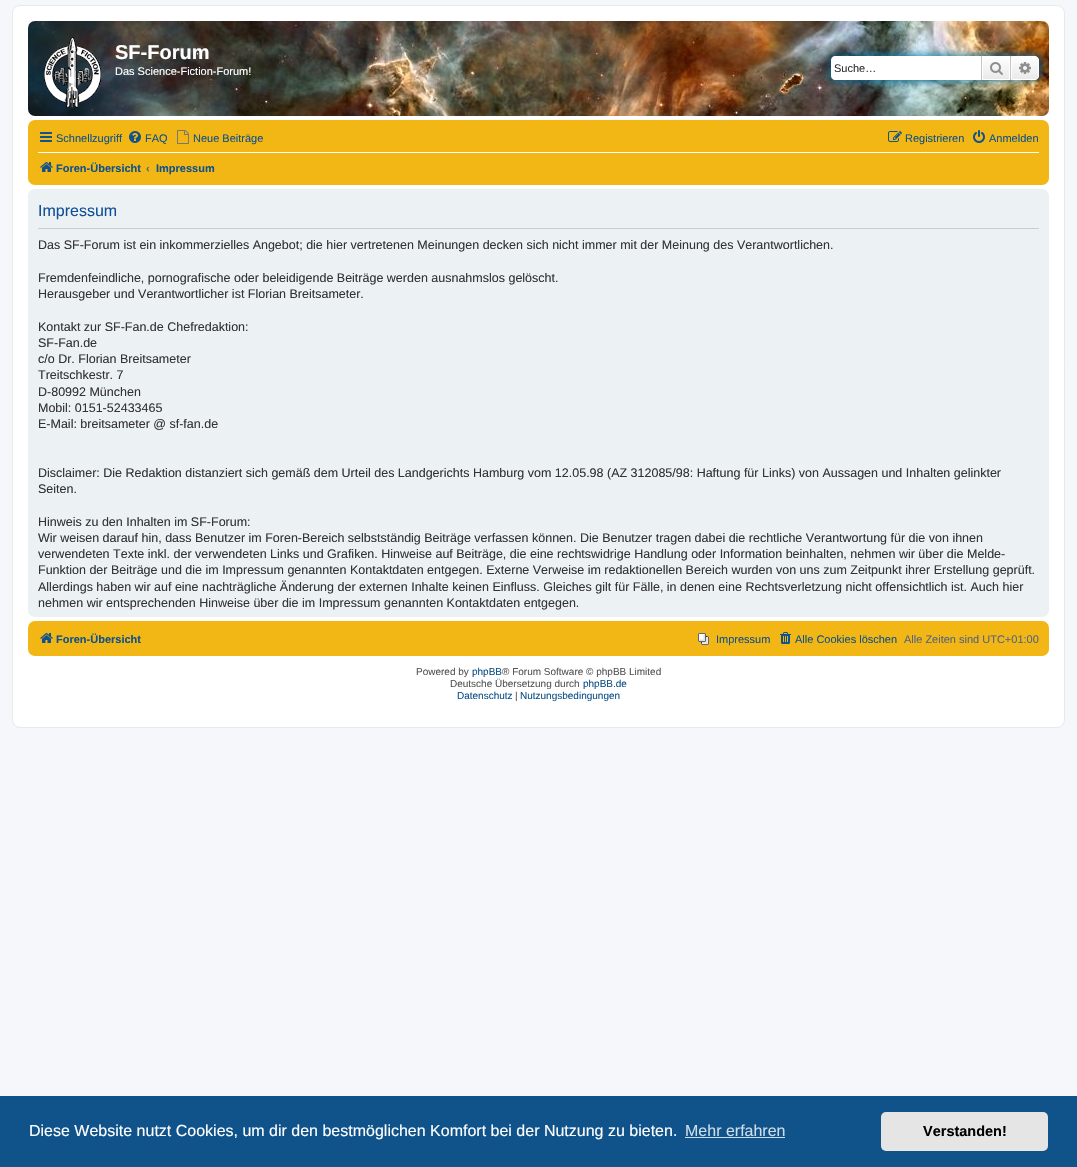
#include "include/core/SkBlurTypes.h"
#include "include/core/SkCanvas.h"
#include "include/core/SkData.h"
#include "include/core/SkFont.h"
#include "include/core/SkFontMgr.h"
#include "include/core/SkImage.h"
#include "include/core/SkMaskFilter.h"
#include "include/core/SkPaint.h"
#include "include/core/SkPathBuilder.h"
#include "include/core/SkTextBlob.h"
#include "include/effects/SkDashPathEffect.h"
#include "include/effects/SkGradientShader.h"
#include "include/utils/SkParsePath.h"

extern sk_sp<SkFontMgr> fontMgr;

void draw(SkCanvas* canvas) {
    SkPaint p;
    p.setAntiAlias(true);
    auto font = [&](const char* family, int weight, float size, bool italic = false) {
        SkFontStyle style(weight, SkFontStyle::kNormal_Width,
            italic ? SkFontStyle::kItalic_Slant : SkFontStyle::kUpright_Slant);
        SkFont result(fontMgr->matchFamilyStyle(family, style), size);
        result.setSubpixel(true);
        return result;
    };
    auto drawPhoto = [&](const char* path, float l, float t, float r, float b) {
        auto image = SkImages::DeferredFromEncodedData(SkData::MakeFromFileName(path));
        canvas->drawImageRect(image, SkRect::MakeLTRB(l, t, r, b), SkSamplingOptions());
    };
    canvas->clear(0xFFF5F7FA);
    p.setColor(0xFFFFFFFF);
    canvas->drawRoundRect(SkRect::MakeLTRB(12.5f, 5.5f, 1064.5f, 727.5f), 7.5f, 7.5f, p);
    p.setStyle(SkPaint::kStroke_Style);
    p.setStrokeWidth(1);
    p.setColor(0xFFE6E9ED);
    canvas->drawRoundRect(SkRect::MakeLTRB(12.5f, 5.5f, 1064.5f, 727.5f), 7.5f, 7.5f, p);
    drawPhoto("media/1.png", 28, 21, 1049, 116);
    drawPhoto("media/2.png", 44, 37, 101, 108);
    auto font1 = font("Liberation Sans", 700, 20);
    p.setStyle(SkPaint::kFill_Style);
    p.setColor(0xFFFFFFFF);
    canvas->drawString("SF-Forum", 115, 59, font1, p);
    auto font2 = font("Liberation Sans", 400, 11);
    canvas->drawString("Das Science-Fiction-Forum!", 115, 75, font2, p);
    p.setColor(0xFF0075B0);
    p.setMaskFilter(SkMaskFilter::MakeBlur(kNormal_SkBlurStyle, 5));
    canvas->drawRoundRect(SkRect::MakeLTRB(831, 56, 1039, 80), 4, 4, p);
    p.setMaskFilter(nullptr);
    p.setColor(0xFFFFFFFF);
    canvas->drawPath(SkPathBuilder().moveTo(835, 56).lineTo(981, 56).lineTo(981, 80).lineTo(835, 80).cubicTo(833, 80, 831, 78, 831, 76).lineTo(831, 60).cubicTo(831, 58, 833, 56, 835, 56).close().detach(), p);
    p.setColor(0xFF333333);
    canvas->drawString("Suche…", 834, 72, font2, p);
    {
        const SkColor colors[] = {0xFFFFFFFF, 0xFFE9E9E9};
        const float stops[] = {0, 1};
        const SkPoint ends[] = {{996, 56}, {996, 80}};
        p.setShader(SkGradientShader::MakeLinear(ends, colors, stops, 2, SkTileMode::kClamp));
        p.setAlpha(255);
    }
    canvas->drawRect(SkRect::MakeLTRB(983, 57, 1009, 79), p);
    p.setStyle(SkPaint::kStroke_Style);
    p.setShader(nullptr);
    p.setColor(0xFFFFFFFF);
    canvas->drawRect(SkRect::MakeLTRB(982.5f, 56.5f, 1009.5f, 79.5f), p);
    p.setStyle(SkPaint::kFill_Style);
    p.setColor(0xFFC7C3BF);
    canvas->drawRect(SkRect::MakeLTRB(1010, 56, 1011, 80), p);
    canvas->drawRect(SkRect::MakeLTRB(981, 56, 982, 80), p);
    drawPhoto("media/3.png", 990, 62, 1003, 75);
    {
        const SkColor colors[] = {0xFFFFFFFF, 0xFFE9E9E9};
        const float stops[] = {0, 1};
        const SkPoint ends[] = {{1025, 56}, {1025, 80}};
        p.setShader(SkGradientShader::MakeLinear(ends, colors, stops, 2, SkTileMode::kClamp));
        p.setAlpha(255);
    }
    canvas->drawPath(SkPathBuilder().moveTo(1011.5f, 56.5f).lineTo(1035, 56.5f).cubicTo(1037, 56.5f, 1038.5f, 58, 1038.5f, 60).lineTo(1038.5f, 76).cubicTo(1038.5f, 78, 1037, 79.5f, 1035, 79.5f).lineTo(1011.5f, 79.5f).close().detach(), p);
    p.setStyle(SkPaint::kStroke_Style);
    p.setShader(nullptr);
    p.setColor(0xFFFFFFFF);
    canvas->drawPath(SkPathBuilder().moveTo(1011.5f, 56.5f).lineTo(1035, 56.5f).cubicTo(1037, 56.5f, 1038.5f, 58, 1038.5f, 60).lineTo(1038.5f, 76).cubicTo(1038.5f, 78, 1037, 79.5f, 1035, 79.5f).lineTo(1011.5f, 79.5f).close().detach(), p);
    drawPhoto("media/4.png", 1019, 62, 1031, 74);
    p.setStyle(SkPaint::kFill_Style);
    p.setColor(0xFFF2B615);
    canvas->drawRoundRect(SkRect::MakeLTRB(28, 120, 1049, 185), 7, 7, p);
    drawPhoto("media/5.png", 40, 132, 52, 142);
    p.setColor(0xFF105289);
    canvas->drawString("Schnellzugriff", 56, 142, font2, p);
    drawPhoto("media/6.png", 129, 131, 141, 143);
    canvas->drawString("FAQ", 145, 142, font2, p);
    drawPhoto("media/7.png", 177, 130, 189, 144);
    canvas->drawString("Neue Beiträge", 193, 142, font2, p);
    drawPhoto("media/8.png", 888, 131, 902, 142);
    canvas->drawString("Registrieren", 905, 142, font2, p);
    drawPhoto("media/9.png", 973, 130, 985, 143);
    canvas->drawString("Anmelden", 989, 142, font2, p);
    p.setColor(0xFFFFFFFF);
    canvas->drawRect(SkRect::MakeLTRB(38, 152, 1039, 153), p);
    drawPhoto("media/10.png", 40, 162, 53, 172);
    auto font3 = font("Liberation Sans", 700, 11);
    p.setColor(0xFF105289);
    canvas->drawString("Foren-Übersicht", 56, 172, font3, p);
    p.setColor(0xFF536482);
    canvas->drawString("‹", 146, 172, font3, p);
    p.setColor(0xFF105289);
    canvas->drawString("Impressum", 156, 172, font3, p);
    p.setColor(0xFFECF1F3);
    canvas->drawRoundRect(SkRect::MakeLTRB(28, 189, 1049, 617), 7, 7, p);
    p.setColor(0xFFCCCCCC);
    canvas->drawRect(SkRect::MakeLTRB(38, 228, 1039, 229), p);
    auto font4 = font("Liberation Sans", 400, 16);
    p.setColor(0xFF115098);
    canvas->drawString("Impressum", 38, 216, font4, p);
    auto font5 = font("Liberation Sans", 400, 12.5f);
    p.setColor(0xFF333333);
    {
        const struct { const char* s; float x, y; } items[] = {
            {"Das SF-Forum ist ein inkommerzielles Angebot; die hier vertretenen Meinungen decken sich nicht immer mit der Meinung des Verantwortlichen.", 38, 249},
            {"Fremdenfeindliche, pornografische oder beleidigende Beiträge werden ausnahmslos gelöscht.", 38, 282},
            {"Herausgeber und Verantwortlicher ist Florian Breitsameter.", 38, 298},
            {"Kontakt zur SF-Fan.de Chefredaktion:", 38, 331},
            {"SF-Fan.de", 38, 347},
            {"c/o Dr. Florian Breitsameter", 38, 363},
            {"Treitschkestr. 7", 38, 379},
            {"D-80992 München", 38, 396},
            {"Mobil: 0151-52433465", 38, 412},
            {"E-Mail: breitsameter @ sf-fan.de", 38, 428},
            {"Disclaimer: Die Redaktion distanziert sich gemäß dem Urteil des Landgerichts Hamburg vom 12.05.98 (AZ 312085/98: Haftung für Links) von Aussagen und Inhalten gelinkter", 38, 477},
            {"Seiten.", 38, 493},
            {"Hinweis zu den Inhalten im SF-Forum:", 38, 526},
            {"Wir weisen darauf hin, dass Benutzer im Foren-Bereich selbstständig Beiträge verfassen können. Die Benutzer tragen dabei die rechtliche Verantwortung für die von ihnen", 38, 542},
            {"verwendeten Texte inkl. der verwendeten Links und Grafiken. Hinweise auf Beiträge, die eine rechtswidrige Handlung oder Information beinhalten, nehmen wir über die Melde-", 38, 558},
            {"Funktion der Beiträge und die im Impressum genannten Kontaktdaten entgegen. Externe Verweise im redaktionellen Bereich wurden von uns zum Zeitpunkt ihrer Erstellung geprüft.", 38, 574},
            {"Allerdings haben wir auf eine nachträgliche Änderung der externen Inhalte keinen Einfluss. Gleiches gilt für Fälle, in denen eine Rechtsverletzung nicht offensichtlich ist. Auch hier", 38, 591},
            {"nehmen wir entsprechenden Hinweise über die im Impressum genannten Kontaktdaten entgegen.", 38, 607},
        };
        for (auto [s, x, y] : items) {
            canvas->drawString(s, x, y, font5, p);
        }
    }
    p.setColor(0xFFF2B615);
    canvas->drawRoundRect(SkRect::MakeLTRB(28, 621, 1049, 656), 7, 7, p);
    drawPhoto("media/10.png", 40, 633, 53, 643);
    p.setColor(0xFF105289);
    canvas->drawString("Foren-Übersicht", 56, 643, font3, p);
    drawPhoto("media/11.png", 698, 633, 709, 645);
    canvas->drawString("Impressum", 716, 643, font2, p);
    drawPhoto("media/12.png", 780, 632, 791, 644);
    canvas->drawString("Alle Cookies löschen", 795, 643, font2, p);
    p.setColor(0xFF536482);
    canvas->drawString("Alle Zeiten sind UTC+01:00", 904, 643, font2, p);
    auto font6 = font("Liberation Sans", 400, 10);
    p.setColor(0xFF555555);
    canvas->drawString("Powered by", 416, 675, font6, p);
    p.setColor(0xFF105289);
    canvas->drawString("phpBB", 472, 675, font6, p);
    p.setColor(0xFF555555);
    canvas->drawString("® Forum Software © phpBB Limited", 502, 675, font6, p);
    canvas->drawString("Deutsche Übersetzung durch", 450, 687, font6, p);
    p.setColor(0xFF105289);
    canvas->drawString("phpBB.de", 583, 687, font6, p);
    canvas->drawString("Datenschutz", 457, 699, font6, p);
    p.setColor(0xFF555555);
    canvas->drawString("|", 515, 699, font6, p);
    p.setColor(0xFF105289);
    canvas->drawString("Nutzungsbedingungen", 520, 699, font6, p);
    p.setColor(0xFF0F538A);
    canvas->drawRect(SkRect::MakeLTRB(0, 1096, 1077, 1167), p);
    p.setColor(0xFFFFFFFF);
    canvas->drawString("Diese Website nutzt Cookies, um dir den bestmöglichen Komfort bei der Nutzung zu bieten.", 29, 1136, font4, p);
    p.setColor(0xFFCFDDE8);
    canvas->drawString("Mehr erfahren", 685, 1136, font4, p);
    canvas->drawRect(SkRect::MakeLTRB(685, 1137, 785, 1138), p);
    p.setColor(0xFFE5E5E5);
    canvas->drawRoundRect(SkRect::MakeLTRB(881, 1112, 1048, 1151), 5, 5, p);
    auto font7 = font("Liberation Sans", 700, 14.5f);
    p.setColor(0xFF000000);
    canvas->drawString("Verstanden!", 923, 1136, font7, p);
}
